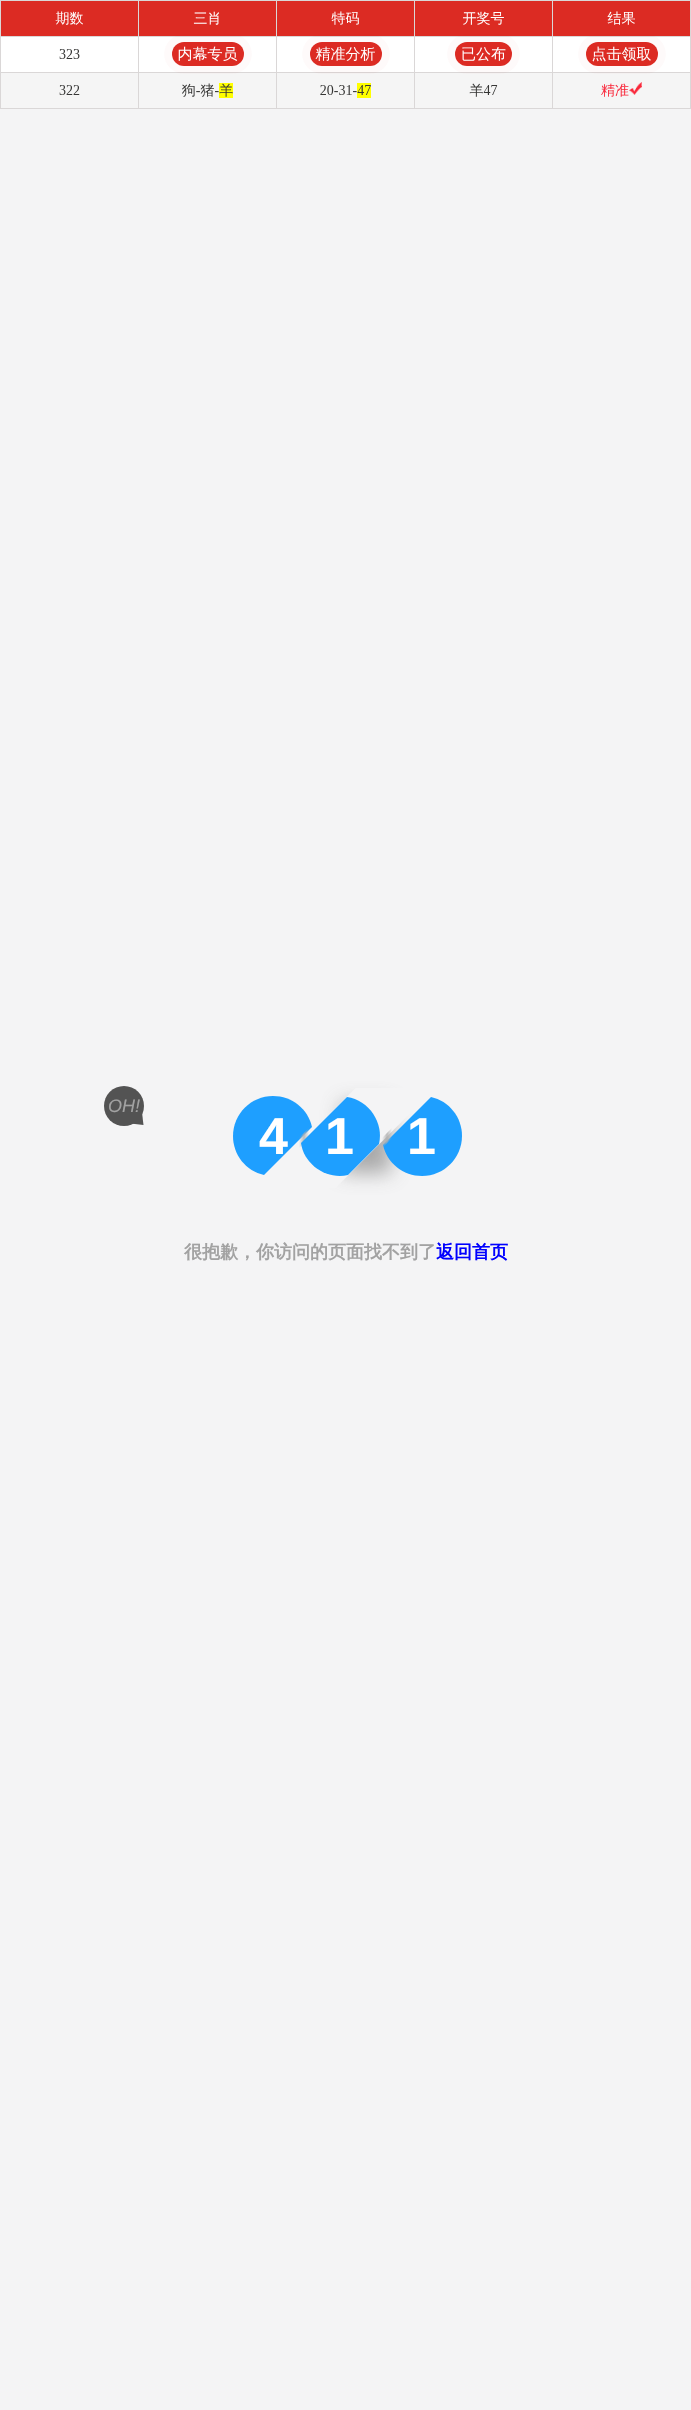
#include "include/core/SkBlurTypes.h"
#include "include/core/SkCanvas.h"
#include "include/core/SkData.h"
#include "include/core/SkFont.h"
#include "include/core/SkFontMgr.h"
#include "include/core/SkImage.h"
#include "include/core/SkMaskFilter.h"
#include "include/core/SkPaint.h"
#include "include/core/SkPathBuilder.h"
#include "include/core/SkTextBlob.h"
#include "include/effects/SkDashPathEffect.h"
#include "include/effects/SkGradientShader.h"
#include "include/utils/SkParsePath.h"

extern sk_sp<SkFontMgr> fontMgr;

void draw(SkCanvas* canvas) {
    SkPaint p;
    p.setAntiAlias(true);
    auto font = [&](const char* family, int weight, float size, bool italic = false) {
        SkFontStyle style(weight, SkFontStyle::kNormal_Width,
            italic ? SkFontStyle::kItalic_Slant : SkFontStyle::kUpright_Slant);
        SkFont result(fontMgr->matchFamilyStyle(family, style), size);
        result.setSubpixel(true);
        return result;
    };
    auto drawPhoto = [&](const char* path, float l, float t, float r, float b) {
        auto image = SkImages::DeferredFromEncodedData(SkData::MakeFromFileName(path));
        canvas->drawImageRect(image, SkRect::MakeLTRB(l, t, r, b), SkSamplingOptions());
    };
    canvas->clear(0xFFF4F4F5);
    drawPhoto("media/1.png", 0, 0, 691, 109);
    p.setColor(0xFF535353);
    canvas->drawCircle(124, 1106, 20, p);
    auto font1 = font("Liberation Sans", 400, 18, true);
    p.setColor(0xFFA2A2A2);
    canvas->drawString("OH!", 108, 1112, font1, p);
    p.setColor(0xFF535353);
    canvas->drawPath(SkPathBuilder().moveTo(130.5f, 1123.5f).lineTo(142, 1112.5f).lineTo(143.5f, 1125).close().detach(), p);
    p.setColor(0xFF1E9FFF);
    canvas->drawPath(SkPathBuilder().moveTo(273, 1096).cubicTo(292, 1096, 308, 1109, 312, 1127).lineTo(264, 1175).cubicTo(246, 1171, 233, 1155, 233, 1136).cubicTo(233, 1114, 251, 1096, 273, 1096).close().detach(), p);
    auto font2 = font("Liberation Sans", 700, 52);
    p.setColor(0xFFFFFFFF);
    canvas->drawString("4", 259, 1154, font2, p);
    {
        const SkColor colors[] = {0x00ADADAD, 0xCCADADAD, 0x00ADADAD};
        const float stops[] = {0, 0.5f, 1};
        const SkPoint ends[] = {{299, 1138}, {309, 1138}};
        p.setShader(SkGradientShader::MakeLinear(ends, colors, stops, 3, SkTileMode::kClamp));
        p.setAlpha(255);
    }
    canvas->drawPath(SkPathBuilder().moveTo(354, 1088).cubicTo(357, 1088, 337, 1110, 309, 1138).cubicTo(281, 1166, 257, 1188, 254, 1188).cubicTo(251, 1188, 271, 1166, 299, 1138).cubicTo(327, 1110, 351, 1088, 354, 1088).close().detach(), p);
    canvas->save();
    canvas->clipPath(SkPathBuilder(SkPathFillType::kEvenOdd).moveTo(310, 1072).lineTo(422, 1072).lineTo(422, 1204).lineTo(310, 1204).close().moveTo(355.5f, 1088).lineTo(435.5f, 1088).lineTo(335.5f, 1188).lineTo(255.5f, 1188).close().detach(), true);
    p.setShader(nullptr);
    p.setColor(0xCC969696);
    p.setMaskFilter(SkMaskFilter::MakeBlur(kNormal_SkBlurStyle, 10));
    canvas->drawRect(SkRect::MakeLTRB(341, 1103, 391, 1173), p);
    p.setMaskFilter(nullptr);
    canvas->restore();
    p.setColor(0xFF1E9FFF);
    canvas->drawPath(SkPathBuilder().moveTo(301, 1143).lineTo(347, 1097).cubicTo(369, 1100, 384, 1123, 379, 1144).lineTo(348, 1175).cubicTo(327, 1180, 304, 1165, 301, 1143).close().detach(), p);
    p.setColor(0xFFFFFFFF);
    canvas->drawString("1", 325, 1154, font2, p);
    p.setColor(0xFF1E9FFF);
    canvas->drawPath(SkPathBuilder().moveTo(383, 1145).lineTo(431, 1097).cubicTo(449, 1101, 462, 1117, 462, 1136).cubicTo(462, 1158, 444, 1176, 422, 1176).cubicTo(403, 1176, 387, 1163, 383, 1145).close().detach(), p);
    p.setColor(0xFFFFFFFF);
    canvas->drawString("1", 407, 1154, font2, p);
    {
        const SkColor colors[] = {0x00ADADAD, 0xCCADADAD, 0x00ADADAD};
        const float stops[] = {0, 0.5f, 1};
        const SkPoint ends[] = {{382, 1138}, {392, 1138}};
        p.setShader(SkGradientShader::MakeLinear(ends, colors, stops, 3, SkTileMode::kClamp));
        p.setAlpha(255);
    }
    canvas->drawPath(SkPathBuilder().moveTo(437, 1088).cubicTo(440, 1088, 420, 1110, 392, 1138).cubicTo(364, 1166, 340, 1188, 337, 1188).cubicTo(334, 1188, 354, 1166, 382, 1138).cubicTo(410, 1110, 434, 1088, 437, 1088).close().detach(), p);
    auto font3 = font("WenQuanYi Zen Hei", 700, 18);
    p.setShader(nullptr);
    p.setColor(0xFFA2A2A2);
    canvas->drawString("很抱歉，你访问的页面找不到了", 184, 1258, font3, p);
    p.setColor(0xFF0000FF);
    canvas->drawString("返回首页", 436, 1258, font3, p);
}
